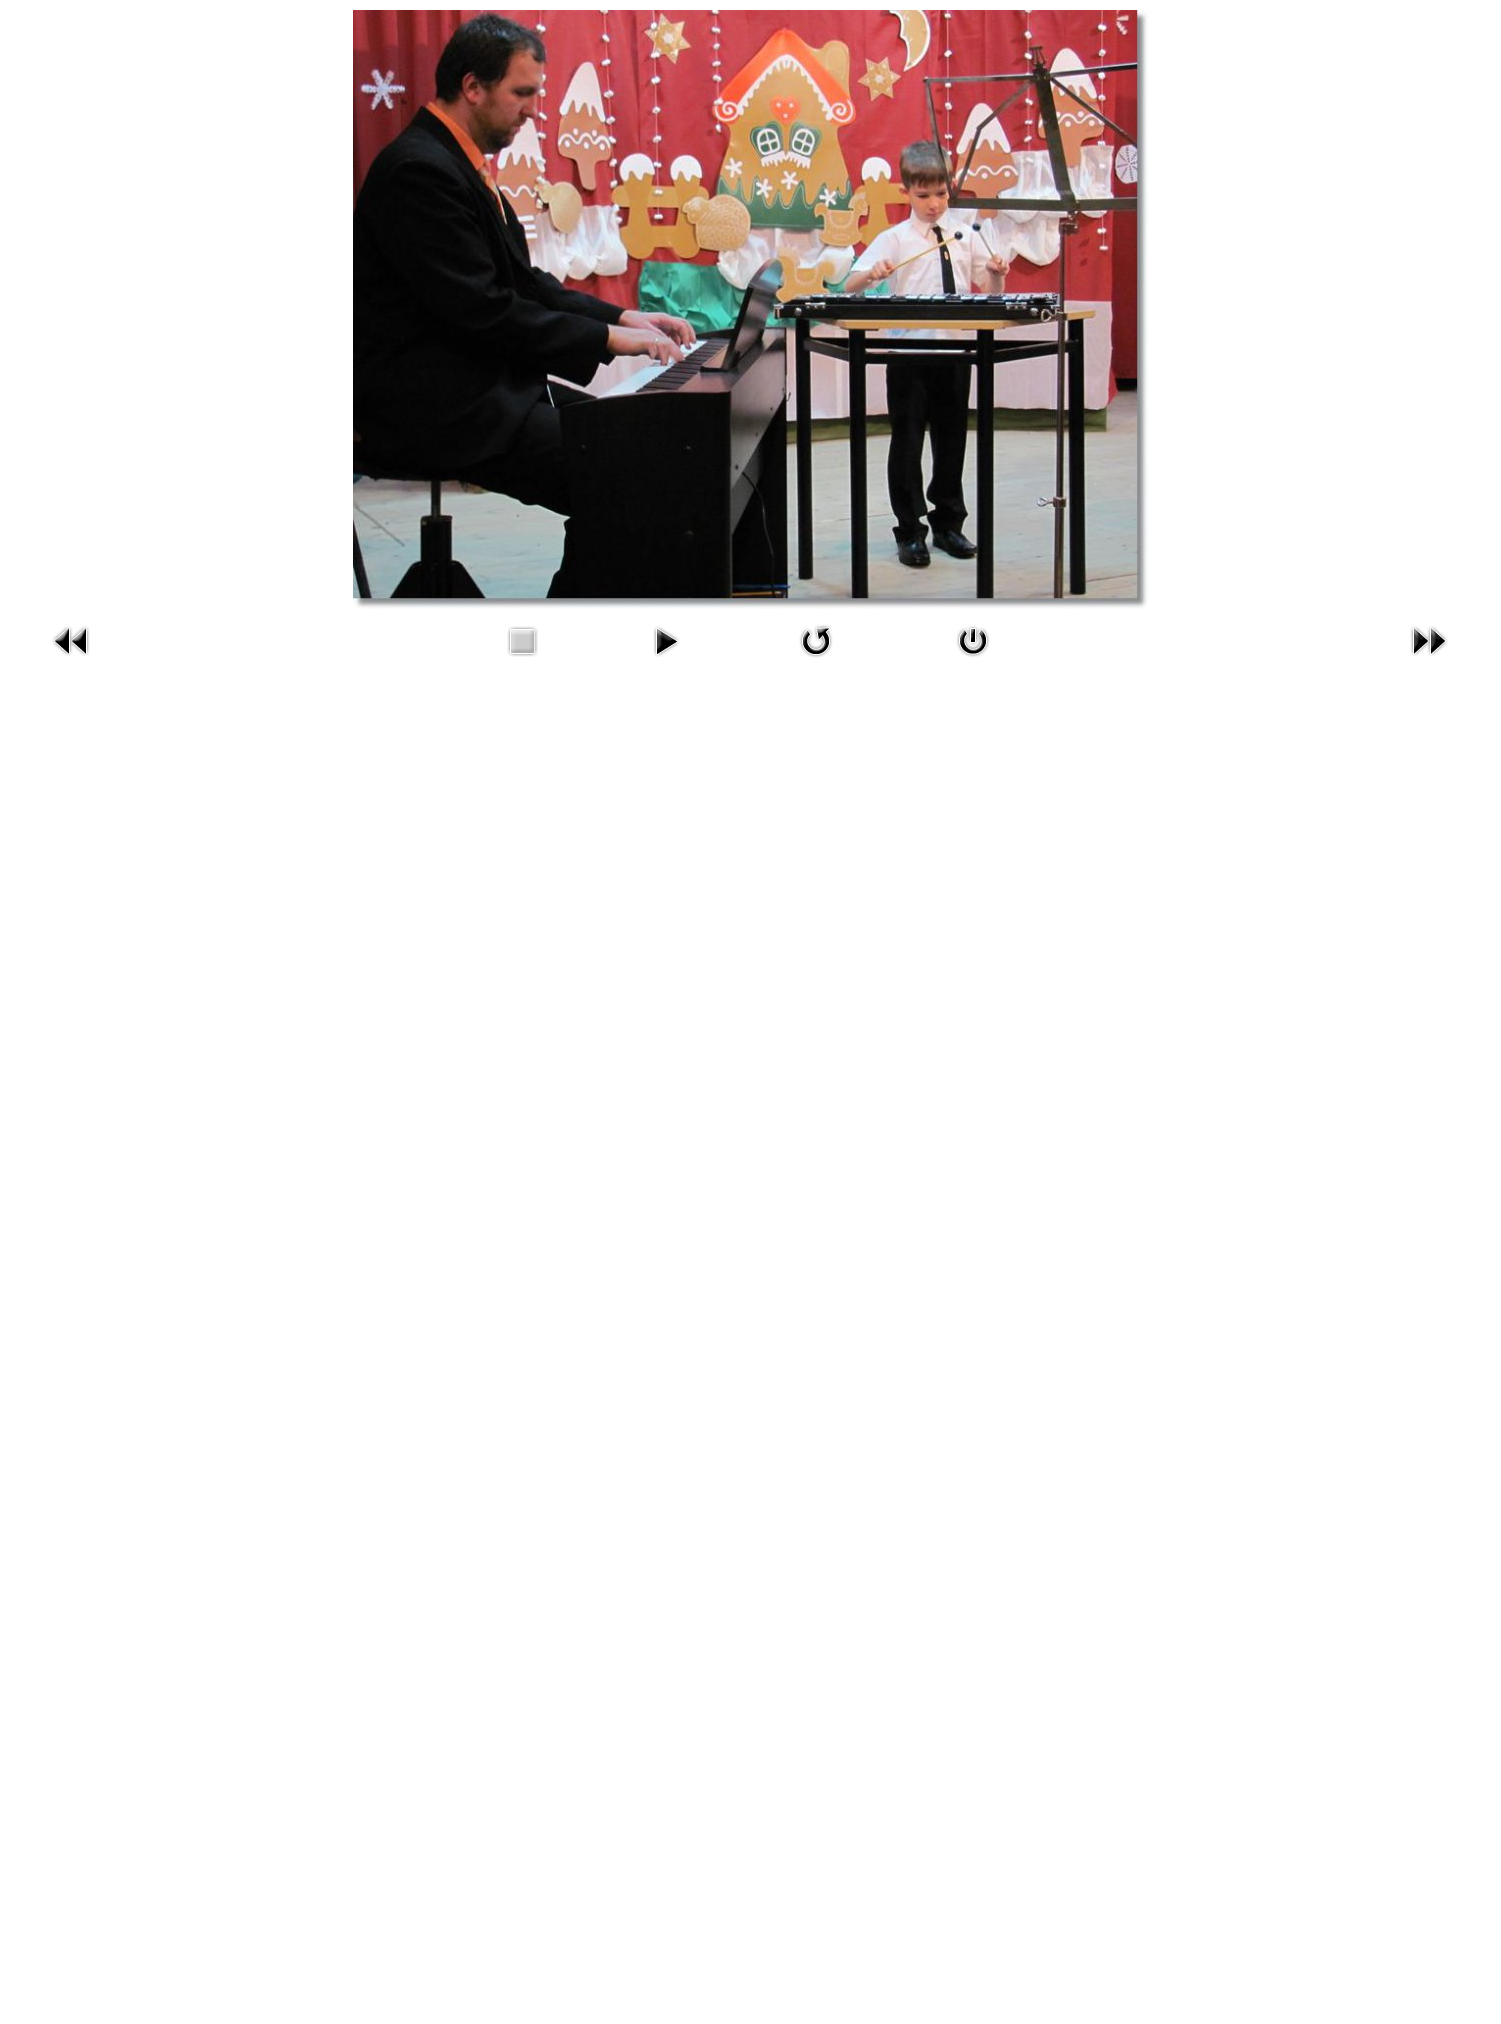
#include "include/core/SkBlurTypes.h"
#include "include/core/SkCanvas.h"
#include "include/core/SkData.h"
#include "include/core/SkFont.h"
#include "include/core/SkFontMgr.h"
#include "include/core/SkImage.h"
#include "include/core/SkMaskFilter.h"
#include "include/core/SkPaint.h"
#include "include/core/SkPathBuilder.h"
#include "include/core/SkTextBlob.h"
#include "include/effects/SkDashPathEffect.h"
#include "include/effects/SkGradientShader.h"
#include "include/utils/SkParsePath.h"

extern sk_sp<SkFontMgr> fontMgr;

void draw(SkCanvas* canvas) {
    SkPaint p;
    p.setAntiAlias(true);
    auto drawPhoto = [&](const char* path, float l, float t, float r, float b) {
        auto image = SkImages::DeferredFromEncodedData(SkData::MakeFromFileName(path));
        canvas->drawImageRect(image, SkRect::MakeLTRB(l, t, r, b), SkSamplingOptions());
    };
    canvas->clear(0xFFFFFFFF);
    drawPhoto("media/1.png", 353, 10, 1149, 609);
    drawPhoto("media/2.png", 52, 626, 90, 656);
    drawPhoto("media/3.png", 507, 626, 538, 657);
    drawPhoto("media/4.png", 653, 626, 680, 657);
    drawPhoto("media/5.png", 799, 624, 833, 658);
    drawPhoto("media/6.png", 956, 625, 990, 658);
    drawPhoto("media/7.png", 1410, 626, 1448, 656);
}
